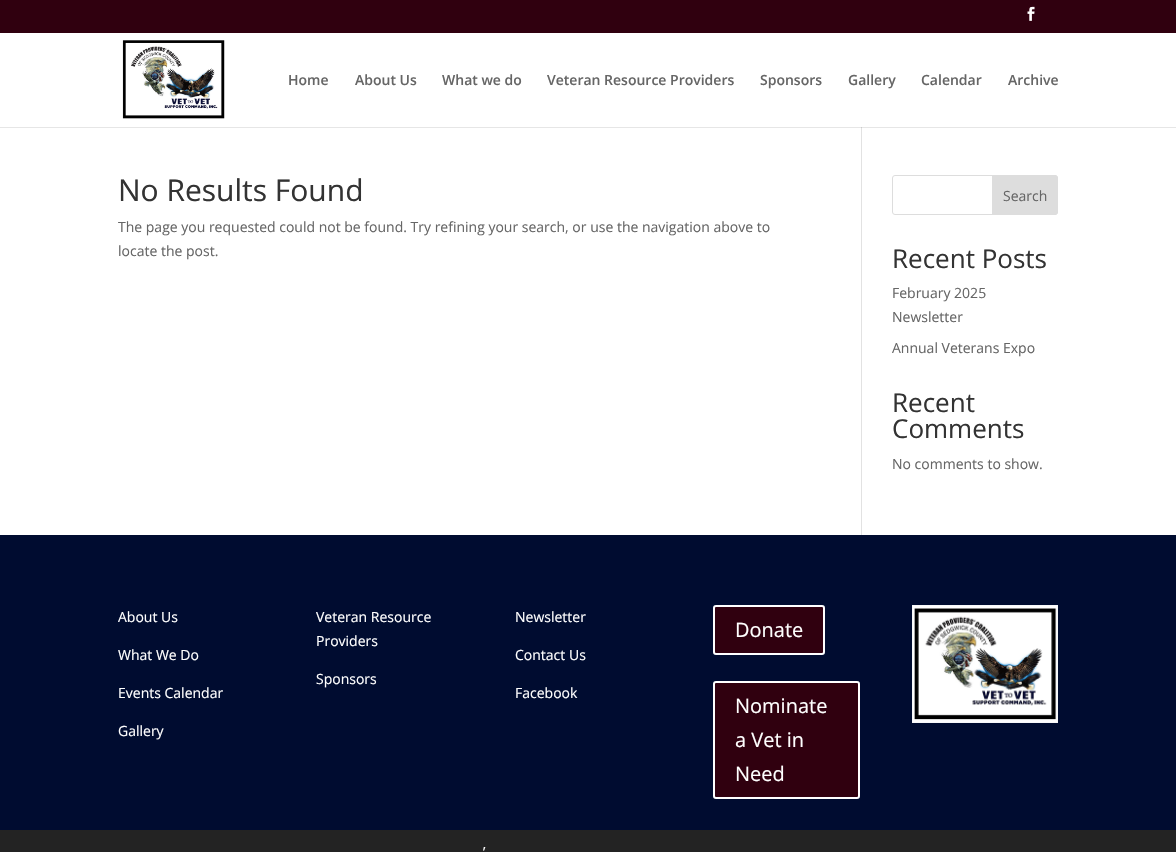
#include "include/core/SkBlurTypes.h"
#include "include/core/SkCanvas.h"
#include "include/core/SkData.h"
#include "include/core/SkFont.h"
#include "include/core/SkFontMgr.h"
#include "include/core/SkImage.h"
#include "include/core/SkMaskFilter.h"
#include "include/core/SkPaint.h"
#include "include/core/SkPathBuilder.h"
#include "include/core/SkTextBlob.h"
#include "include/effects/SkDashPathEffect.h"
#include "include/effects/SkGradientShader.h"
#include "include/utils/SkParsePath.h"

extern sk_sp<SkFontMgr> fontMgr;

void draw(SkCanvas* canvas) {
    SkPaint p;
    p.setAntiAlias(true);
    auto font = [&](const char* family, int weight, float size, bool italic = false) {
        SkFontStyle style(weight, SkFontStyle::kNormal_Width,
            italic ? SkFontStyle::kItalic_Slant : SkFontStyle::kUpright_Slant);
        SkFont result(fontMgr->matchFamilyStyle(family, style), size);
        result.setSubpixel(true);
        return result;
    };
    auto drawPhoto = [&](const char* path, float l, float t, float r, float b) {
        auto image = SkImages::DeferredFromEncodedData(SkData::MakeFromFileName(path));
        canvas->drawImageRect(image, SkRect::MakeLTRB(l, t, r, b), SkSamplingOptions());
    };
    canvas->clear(0xFFFFFFFF);
    p.setColor(0xFFE6E6E6);
    canvas->drawRect(SkRect::MakeLTRB(0, 127, 1176, 128), p);
    p.setColor(0xFF30000F);
    canvas->drawRect(SkRect::MakeLTRB(0, 0, 1176, 33), p);
    drawPhoto("media/1.png", 1027, 6, 1035, 21);
    drawPhoto("media/2.png", 122, 40, 225, 119);
    auto font1 = font("Open Sans", 600, 14);
    p.setColor(0xFF666666);
    {
        const struct { const char* s; float x, y; } items[] = {
            {"Home", 288, 85},
            {"About Us", 355, 85},
            {"What we do", 442, 85},
            {"Veteran Resource Providers", 547, 85},
            {"Sponsors", 760, 85},
            {"Gallery", 848, 85},
            {"Calendar", 921, 85},
            {"Archive", 1008, 85},
        };
        for (auto [s, x, y] : items) {
            canvas->drawString(s, x, y, font1, p);
        }
    }
    p.setColor(0xFFE2E2E2);
    canvas->drawRect(SkRect::MakeLTRB(861, 128, 862, 535), p);
    p.setColor(0xFFCBCBCB);
    canvas->drawRect(SkRect::MakeLTRB(861, 127, 862, 128), p);
    auto font2 = font("Open Sans", 400, 30);
    p.setColor(0xFF333333);
    canvas->drawString("No Results Found", 118, 201, font2, p);
    auto font3 = font("Open Sans", 400, 14);
    p.setColor(0xFF666666);
    canvas->drawString("The page you requested could not be found. Try refining your search, or use the navigation above to", 118, 232, font3, p);
    canvas->drawString("locate the post.", 118, 256, font3, p);
    p.setStyle(SkPaint::kStroke_Style);
    p.setStrokeWidth(1);
    p.setColor(0xFFDDDDDD);
    canvas->drawRoundRect(SkRect::MakeLTRB(892.5f, 175.5f, 1057.5f, 214.5f), 2.5f, 2.5f, p);
    p.setStyle(SkPaint::kFill_Style);
    canvas->drawPath(SkPathBuilder().moveTo(992.5f, 175.5f).lineTo(1055, 175.5f).cubicTo(1056.5f, 175.5f, 1057.5f, 176.5f, 1057.5f, 178).lineTo(1057.5f, 212).cubicTo(1057.5f, 213.5f, 1056.5f, 214.5f, 1055, 214.5f).lineTo(992.5f, 214.5f).close().detach(), p);
    p.setStyle(SkPaint::kStroke_Style);
    canvas->drawPath(SkPathBuilder().moveTo(992.5f, 175.5f).lineTo(1055, 175.5f).cubicTo(1056.5f, 175.5f, 1057.5f, 176.5f, 1057.5f, 178).lineTo(1057.5f, 212).cubicTo(1057.5f, 213.5f, 1056.5f, 214.5f, 1055, 214.5f).lineTo(992.5f, 214.5f).close().detach(), p);
    p.setStyle(SkPaint::kFill_Style);
    p.setColor(0xFF666666);
    canvas->drawString("Search", 1003, 201, font3, p);
    auto font4 = font("Open Sans", 400, 26);
    p.setColor(0xFF333333);
    canvas->drawString("Recent Posts", 892, 268, font4, p);
    p.setColor(0xFF666666);
    {
        const struct { const char* s; float x, y; } items[] = {
            {"February 2025", 892, 298},
            {"Newsletter", 892, 322},
            {"Annual Veterans Expo", 892, 353},
        };
        for (auto [s, x, y] : items) {
            canvas->drawString(s, x, y, font3, p);
        }
    }
    p.setColor(0xFF333333);
    canvas->drawString("Recent", 892, 412, font4, p);
    canvas->drawString("Comments", 892, 438, font4, p);
    p.setColor(0xFF666666);
    canvas->drawString("No comments to show.", 892, 469, font3, p);
    p.setColor(0xFF000C30);
    canvas->drawRect(SkRect::MakeLTRB(0, 535, 1176, 830), p);
    p.setColor(0xFFFFFFFF);
    {
        const struct { const char* s; float x, y; } items[] = {
            {"About Us", 118, 622},
            {"What We Do", 118, 660},
            {"Events Calendar", 118, 698},
            {"Gallery", 118, 736},
            {"Veteran Resource", 316, 622},
            {"Providers", 316, 646},
            {"Sponsors", 316, 684},
            {"Newsletter", 515, 622},
            {"Contact Us", 515, 660},
            {"Facebook", 515, 698},
        };
        for (auto [s, x, y] : items) {
            canvas->drawString(s, x, y, font3, p);
        }
    }
    p.setColor(0xFF30000F);
    canvas->drawRoundRect(SkRect::MakeLTRB(714, 606, 824, 654), 2, 2, p);
    p.setStyle(SkPaint::kStroke_Style);
    p.setStrokeWidth(2);
    p.setColor(0xFFFFFFFF);
    canvas->drawRoundRect(SkRect::MakeLTRB(714, 606, 824, 654), 2, 2, p);
    auto font5 = font("Open Sans", 400, 20);
    p.setStyle(SkPaint::kFill_Style);
    canvas->drawString("Donate", 735, 637, font5, p);
    p.setColor(0xFF30000F);
    canvas->drawRoundRect(SkRect::MakeLTRB(714, 682, 859, 798), 2, 2, p);
    p.setStyle(SkPaint::kStroke_Style);
    p.setColor(0xFFFFFFFF);
    canvas->drawRoundRect(SkRect::MakeLTRB(714, 682, 859, 798), 2, 2, p);
    p.setStyle(SkPaint::kFill_Style);
    {
        const struct { const char* s; float x, y; } items[] = {
            {"Nominate", 735, 713},
            {"a Vet in", 735, 747},
            {"Need", 735, 781},
        };
        for (auto [s, x, y] : items) {
            canvas->drawString(s, x, y, font5, p);
        }
    }
    drawPhoto("media/3.png", 912, 605, 1058, 723);
    p.setColor(0xFF232323);
    canvas->drawRect(SkRect::MakeLTRB(0, 830, 1176, 852), p);
    p.setColor(0xFFFFFFFF);
    canvas->drawString("’", 483, 857, font3, p);
}
